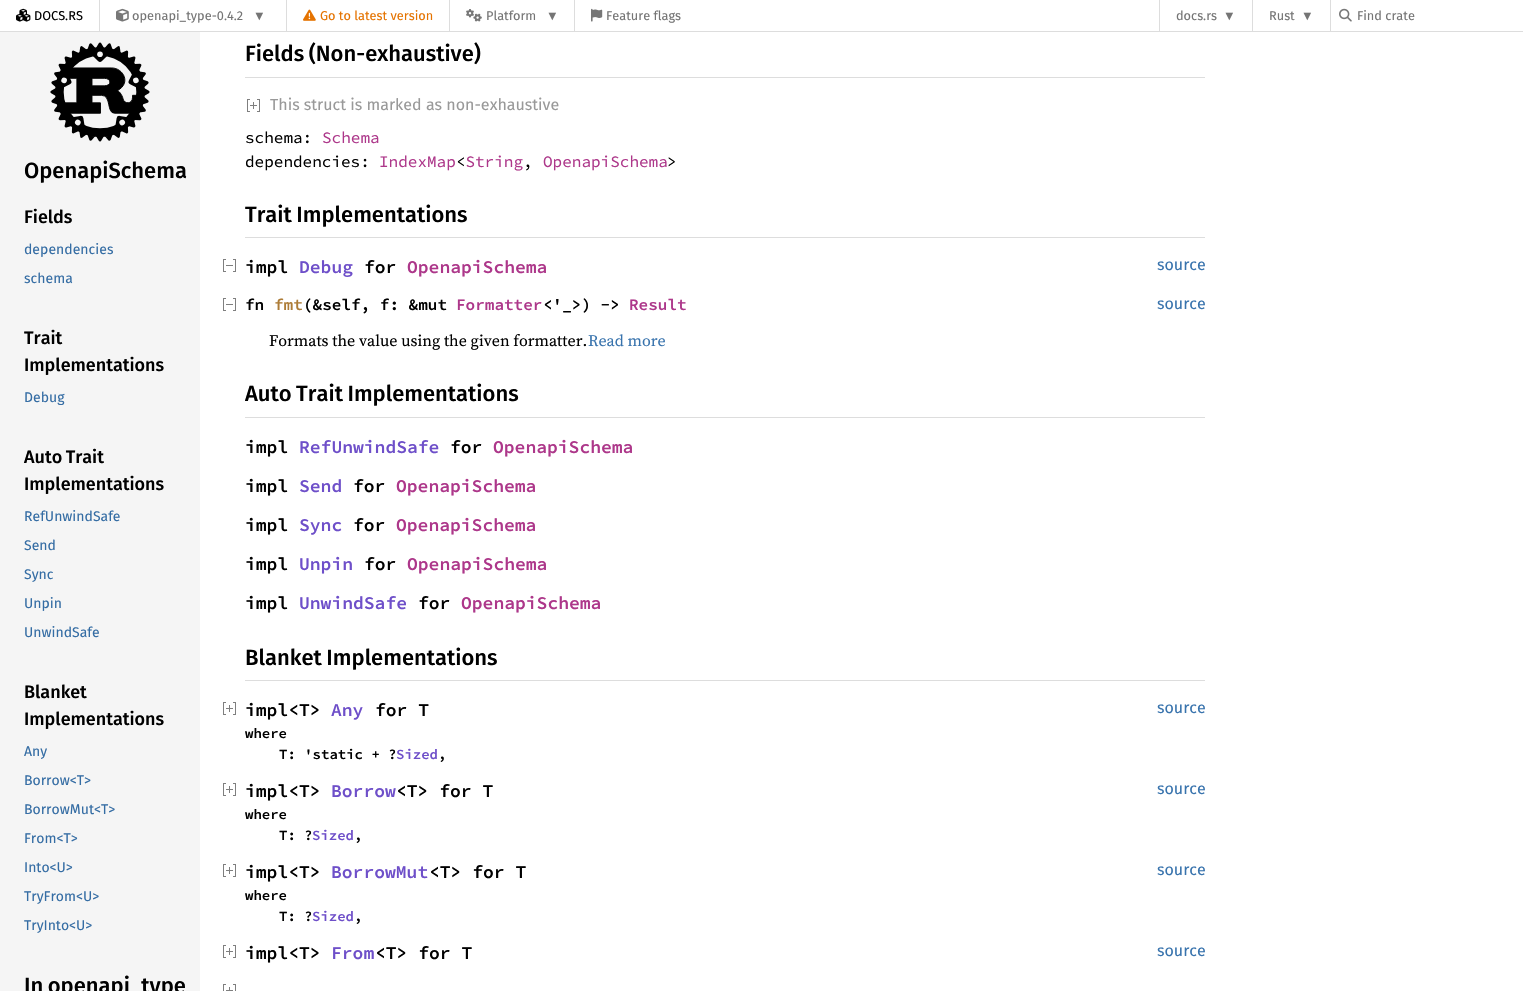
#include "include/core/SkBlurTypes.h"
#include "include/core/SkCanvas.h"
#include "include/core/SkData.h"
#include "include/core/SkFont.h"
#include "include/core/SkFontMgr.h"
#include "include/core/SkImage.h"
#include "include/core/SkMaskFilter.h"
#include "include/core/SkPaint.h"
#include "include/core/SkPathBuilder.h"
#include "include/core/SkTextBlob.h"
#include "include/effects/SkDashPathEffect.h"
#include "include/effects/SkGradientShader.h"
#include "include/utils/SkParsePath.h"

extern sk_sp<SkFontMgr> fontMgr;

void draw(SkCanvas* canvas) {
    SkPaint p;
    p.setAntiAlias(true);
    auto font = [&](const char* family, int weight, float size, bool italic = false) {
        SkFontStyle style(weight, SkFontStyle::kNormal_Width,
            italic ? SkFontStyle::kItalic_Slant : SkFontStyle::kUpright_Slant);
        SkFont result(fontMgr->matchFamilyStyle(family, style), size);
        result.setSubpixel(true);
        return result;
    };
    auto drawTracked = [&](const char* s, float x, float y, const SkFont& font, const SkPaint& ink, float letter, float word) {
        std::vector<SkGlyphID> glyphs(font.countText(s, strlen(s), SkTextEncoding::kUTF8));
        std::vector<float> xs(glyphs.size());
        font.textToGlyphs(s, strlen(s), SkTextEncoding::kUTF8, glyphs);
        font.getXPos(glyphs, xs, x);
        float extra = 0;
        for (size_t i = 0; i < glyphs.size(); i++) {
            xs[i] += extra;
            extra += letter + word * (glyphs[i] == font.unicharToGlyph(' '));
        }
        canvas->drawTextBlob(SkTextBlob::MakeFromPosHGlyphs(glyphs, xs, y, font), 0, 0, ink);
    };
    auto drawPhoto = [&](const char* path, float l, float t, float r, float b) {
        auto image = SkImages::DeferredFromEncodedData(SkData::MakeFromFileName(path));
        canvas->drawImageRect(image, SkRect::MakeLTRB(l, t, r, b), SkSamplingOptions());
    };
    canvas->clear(0xFFFFFFFF);
    p.setColor(0xFFDDDDDD);
    canvas->drawRect(SkRect::MakeLTRB(0, 31, 1523, 32), p);
    drawPhoto("media/1.png", 16, 8, 31, 22);
    auto font1 = font("Fira Sans", 400, 12.75f);
    p.setColor(0xFF000000);
    canvas->drawString("DOCS.RS", 34, 20, font1, p);
    p.setColor(0xFFDDDDDD);
    canvas->drawRect(SkRect::MakeLTRB(99, 0, 100, 31), p);
    drawPhoto("media/2.png", 116, 8, 129, 22);
    p.setColor(0xFF757575);
    canvas->drawString("openapi_type-0.4.2", 132, 20, font1, p);
    auto font2 = font("Liberation Sans", 400, 12.75f);
    canvas->drawString("▼", 253, 20, font2, p);
    p.setColor(0xFFDDDDDD);
    canvas->drawRect(SkRect::MakeLTRB(286, 0, 287, 31), p);
    drawPhoto("media/3.png", 303, 9, 316, 21);
    p.setColor(0xFFE57300);
    canvas->drawString("Go to latest version", 320, 20, font1, p);
    p.setColor(0xFFDDDDDD);
    canvas->drawRect(SkRect::MakeLTRB(449, 0, 450, 31), p);
    drawPhoto("media/4.png", 466, 9, 482, 22);
    p.setColor(0xFF757575);
    canvas->drawString("Platform", 486, 20, font1, p);
    canvas->drawString("▼", 546, 20, font2, p);
    p.setColor(0xFFDDDDDD);
    canvas->drawRect(SkRect::MakeLTRB(574, 0, 575, 31), p);
    drawPhoto("media/5.png", 591, 8, 603, 22);
    p.setColor(0xFF757575);
    canvas->drawString("Feature flags", 606, 20, font1, p);
    p.setColor(0xFFDDDDDD);
    canvas->drawRect(SkRect::MakeLTRB(1159, 0, 1160, 31), p);
    p.setColor(0xFF757575);
    canvas->drawString("docs.rs", 1176, 20, font1, p);
    canvas->drawString("▼", 1223, 20, font2, p);
    p.setColor(0xFFDDDDDD);
    canvas->drawRect(SkRect::MakeLTRB(1252, 0, 1253, 31), p);
    p.setColor(0xFF757575);
    canvas->drawString("Rust", 1269, 20, font1, p);
    canvas->drawString("▼", 1301, 20, font2, p);
    p.setColor(0xFFDDDDDD);
    canvas->drawRect(SkRect::MakeLTRB(1330, 0, 1331, 31), p);
    drawPhoto("media/6.png", 1339, 8, 1352, 22);
    p.setColor(0xFF757575);
    canvas->drawString("Find crate", 1357, 20, font1, p);
    p.setColor(0xFFF5F5F5);
    canvas->drawRect(SkRect::MakeLTRB(0, 32, 200, 991), p);
    drawPhoto("media/7.png", 50, 42, 150, 142);
    auto font3 = font("Fira Sans", 500, 22);
    p.setColor(0xFF000000);
    canvas->drawString("OpenapiSchema", 24, 178, font3, p);
    auto font4 = font("Fira Sans", 500, 18);
    canvas->drawString("Fields", 24, 223, font4, p);
    auto font5 = font("Fira Sans", 400, 14);
    p.setColor(0xFF356DA4);
    canvas->drawString("dependencies", 24, 254, font5, p);
    canvas->drawString("schema", 24, 283, font5, p);
    p.setColor(0xFF000000);
    canvas->drawString("Trait", 24, 344, font4, p);
    canvas->drawString("Implementations", 24, 371, font4, p);
    p.setColor(0xFF356DA4);
    canvas->drawString("Debug", 24, 402, font5, p);
    p.setColor(0xFF000000);
    drawTracked("Auto Trait", 24, 463, font4, p, 0, -1);
    canvas->drawString("Implementations", 24, 490, font4, p);
    p.setColor(0xFF356DA4);
    {
        const struct { const char* s; float x, y; } items[] = {
            {"RefUnwindSafe", 24, 521},
            {"Send", 24, 550},
            {"Sync", 24, 579},
            {"Unpin", 24, 608},
            {"UnwindSafe", 24, 637},
        };
        for (auto [s, x, y] : items) {
            canvas->drawString(s, x, y, font5, p);
        }
    }
    p.setColor(0xFF000000);
    canvas->drawString("Blanket", 24, 698, font4, p);
    canvas->drawString("Implementations", 24, 725, font4, p);
    p.setColor(0xFF356DA4);
    {
        const struct { const char* s; float x, y; } items[] = {
            {"Any", 24, 756},
            {"Borrow<T>", 24, 785},
            {"BorrowMut<T>", 24, 814},
            {"From<T>", 24, 843},
            {"Into<U>", 24, 872},
            {"TryFrom<U>", 24, 901},
            {"TryInto<U>", 24, 930},
        };
        for (auto [s, x, y] : items) {
            canvas->drawString(s, x, y, font5, p);
        }
    }
    p.setColor(0xFF000000);
    drawTracked("In openapi_type", 24, 993, font3, p, 0, -1);
    p.setColor(0xFFDDDDDD);
    canvas->drawRect(SkRect::MakeLTRB(245, 77, 1205, 78), p);
    p.setColor(0xFF000000);
    drawTracked("Fields (Non-exhaustive)", 245, 61, font3, p, 0, -1);
    drawPhoto("media/8.png", 247, 99, 260, 112);
    auto font6 = font("Fira Sans", 400, 16);
    p.setColor(0xFF999999);
    canvas->drawString("This struct is marked as non-exhaustive", 270, 110, font6, p);
    auto font7 = font("Source Code Pro", 400, 16);
    p.setColor(0xFF000000);
    canvas->drawString("schema:", 245, 143, font7, p);
    p.setColor(0xFFAD378A);
    canvas->drawString("Schema", 322, 143, font7, p);
    p.setColor(0xFF000000);
    canvas->drawString("dependencies:", 245, 167, font7, p);
    p.setColor(0xFFAD378A);
    canvas->drawString("IndexMap String", 379, 167, font7, p);
    canvas->drawString("OpenapiSchema", 543, 167, font7, p);
    p.setColor(0xFF000000);
    {
        const struct { const char* s; float x, y; } items[] = {
            {"<", 456, 167},
            {",", 523, 167},
            {">", 667, 167},
        };
        for (auto [s, x, y] : items) {
            canvas->drawString(s, x, y, font7, p);
        }
    }
    p.setColor(0xFFDDDDDD);
    canvas->drawRect(SkRect::MakeLTRB(245, 237, 1205, 238), p);
    p.setColor(0xFF000000);
    drawTracked("Trait Implementations", 245, 222, font3, p, 0, -1);
    drawPhoto("media/9.png", 223, 259, 236, 272);
    auto font8 = font("Source Code Pro", 600, 18);
    canvas->drawString("impl", 245, 273, font8, p);
    p.setColor(0xFF6E4FC9);
    canvas->drawString("Debug", 299, 273, font8, p);
    p.setColor(0xFF000000);
    canvas->drawString("for", 364, 273, font8, p);
    p.setColor(0xFFAD378A);
    canvas->drawString("OpenapiSchema", 407, 273, font8, p);
    p.setColor(0xFF3873AD);
    canvas->drawString("source", 1157, 270, font6, p);
    drawPhoto("media/9.png", 223, 298, 236, 311);
    auto font9 = font("Source Code Pro", 600, 16);
    p.setColor(0xFF000000);
    canvas->drawString("fn", 245, 310, font9, p);
    p.setColor(0xFFAD7C37);
    canvas->drawString("fmt", 274, 310, font9, p);
    p.setColor(0xFF000000);
    canvas->drawString("(&self, f: &mut", 303, 310, font9, p);
    p.setColor(0xFFAD378A);
    canvas->drawString("Formatter", 456, 310, font9, p);
    p.setColor(0xFF000000);
    canvas->drawString("<'_>) ->", 543, 310, font9, p);
    p.setColor(0xFFAD378A);
    canvas->drawString("Result", 629, 310, font9, p);
    p.setColor(0xFF3873AD);
    canvas->drawString("source", 1157, 309, font6, p);
    auto font10 = font("Source Serif 4", 400, 16);
    p.setColor(0xFF000000);
    canvas->drawString("Formats the value using the given formatter.", 269, 346, font10, p);
    p.setColor(0xFF3873AD);
    canvas->drawString("Read more", 588, 346, font10, p);
    p.setColor(0xFFDDDDDD);
    canvas->drawRect(SkRect::MakeLTRB(245, 417, 1205, 418), p);
    p.setColor(0xFF000000);
    drawTracked("Auto Trait Implementations", 245, 401, font3, p, 0, -1);
    canvas->drawString("impl", 245, 453, font8, p);
    p.setColor(0xFF6E4FC9);
    canvas->drawString("RefUnwindSafe", 299, 453, font8, p);
    p.setColor(0xFF000000);
    canvas->drawString("for", 450, 453, font8, p);
    p.setColor(0xFFAD378A);
    canvas->drawString("OpenapiSchema", 493, 453, font8, p);
    p.setColor(0xFF000000);
    canvas->drawString("impl", 245, 492, font8, p);
    p.setColor(0xFF6E4FC9);
    canvas->drawString("Send", 299, 492, font8, p);
    p.setColor(0xFF000000);
    canvas->drawString("for", 353, 492, font8, p);
    p.setColor(0xFFAD378A);
    canvas->drawString("OpenapiSchema", 396, 492, font8, p);
    p.setColor(0xFF000000);
    canvas->drawString("impl", 245, 531, font8, p);
    p.setColor(0xFF6E4FC9);
    canvas->drawString("Sync", 299, 531, font8, p);
    p.setColor(0xFF000000);
    canvas->drawString("for", 353, 531, font8, p);
    p.setColor(0xFFAD378A);
    canvas->drawString("OpenapiSchema", 396, 531, font8, p);
    p.setColor(0xFF000000);
    canvas->drawString("impl", 245, 570, font8, p);
    p.setColor(0xFF6E4FC9);
    canvas->drawString("Unpin", 299, 570, font8, p);
    p.setColor(0xFF000000);
    canvas->drawString("for", 364, 570, font8, p);
    p.setColor(0xFFAD378A);
    canvas->drawString("OpenapiSchema", 407, 570, font8, p);
    p.setColor(0xFF000000);
    canvas->drawString("impl", 245, 609, font8, p);
    p.setColor(0xFF6E4FC9);
    canvas->drawString("UnwindSafe", 299, 609, font8, p);
    p.setColor(0xFF000000);
    canvas->drawString("for", 418, 609, font8, p);
    p.setColor(0xFFAD378A);
    canvas->drawString("OpenapiSchema", 461, 609, font8, p);
    p.setColor(0xFFDDDDDD);
    canvas->drawRect(SkRect::MakeLTRB(245, 680, 1205, 681), p);
    p.setColor(0xFF000000);
    drawTracked("Blanket Implementations", 245, 665, font3, p, 0, -1);
    drawPhoto("media/8.png", 223, 702, 236, 715);
    canvas->drawString("impl<T>", 245, 716, font8, p);
    p.setColor(0xFF6E4FC9);
    canvas->drawString("Any", 331, 716, font8, p);
    p.setColor(0xFF000000);
    canvas->drawString("for T", 375, 716, font8, p);
    auto font11 = font("Source Code Pro", 600, 14);
    canvas->drawString("where", 245, 738, font11, p);
    canvas->drawString("T: 'static + ?", 279, 759, font11, p);
    p.setColor(0xFF6E4FC9);
    canvas->drawString("Sized", 396, 759, font11, p);
    p.setColor(0xFF000000);
    canvas->drawString(",", 438, 759, font11, p);
    p.setColor(0xFF3873AD);
    canvas->drawString("source", 1157, 713, font6, p);
    drawPhoto("media/8.png", 223, 783, 236, 796);
    p.setColor(0xFF000000);
    canvas->drawString("impl<T>", 245, 797, font8, p);
    p.setColor(0xFF6E4FC9);
    canvas->drawString("Borrow", 331, 797, font8, p);
    p.setColor(0xFF000000);
    canvas->drawString("<T> for T", 396, 797, font8, p);
    canvas->drawString("where", 245, 819, font11, p);
    canvas->drawString("T: ?", 279, 840, font11, p);
    p.setColor(0xFF6E4FC9);
    canvas->drawString("Sized", 312, 840, font11, p);
    p.setColor(0xFF000000);
    canvas->drawString(",", 354, 840, font11, p);
    p.setColor(0xFF3873AD);
    canvas->drawString("source", 1157, 794, font6, p);
    drawPhoto("media/8.png", 223, 864, 236, 877);
    p.setColor(0xFF000000);
    canvas->drawString("impl<T>", 245, 878, font8, p);
    p.setColor(0xFF6E4FC9);
    canvas->drawString("BorrowMut", 331, 878, font8, p);
    p.setColor(0xFF000000);
    canvas->drawString("<T> for T", 429, 878, font8, p);
    canvas->drawString("where", 245, 900, font11, p);
    canvas->drawString("T: ?", 279, 921, font11, p);
    p.setColor(0xFF6E4FC9);
    canvas->drawString("Sized", 312, 921, font11, p);
    p.setColor(0xFF000000);
    canvas->drawString(",", 354, 921, font11, p);
    p.setColor(0xFF3873AD);
    canvas->drawString("source", 1157, 875, font6, p);
    drawPhoto("media/8.png", 223, 945, 236, 958);
    p.setColor(0xFF000000);
    canvas->drawString("impl<T>", 245, 959, font8, p);
    p.setColor(0xFF6E4FC9);
    canvas->drawString("From", 331, 959, font8, p);
    p.setColor(0xFF000000);
    canvas->drawString("<T> for T", 375, 959, font8, p);
    p.setColor(0xFF3873AD);
    canvas->drawString("source", 1157, 956, font6, p);
    drawPhoto("media/10.png", 223, 984, 236, 991);
}
